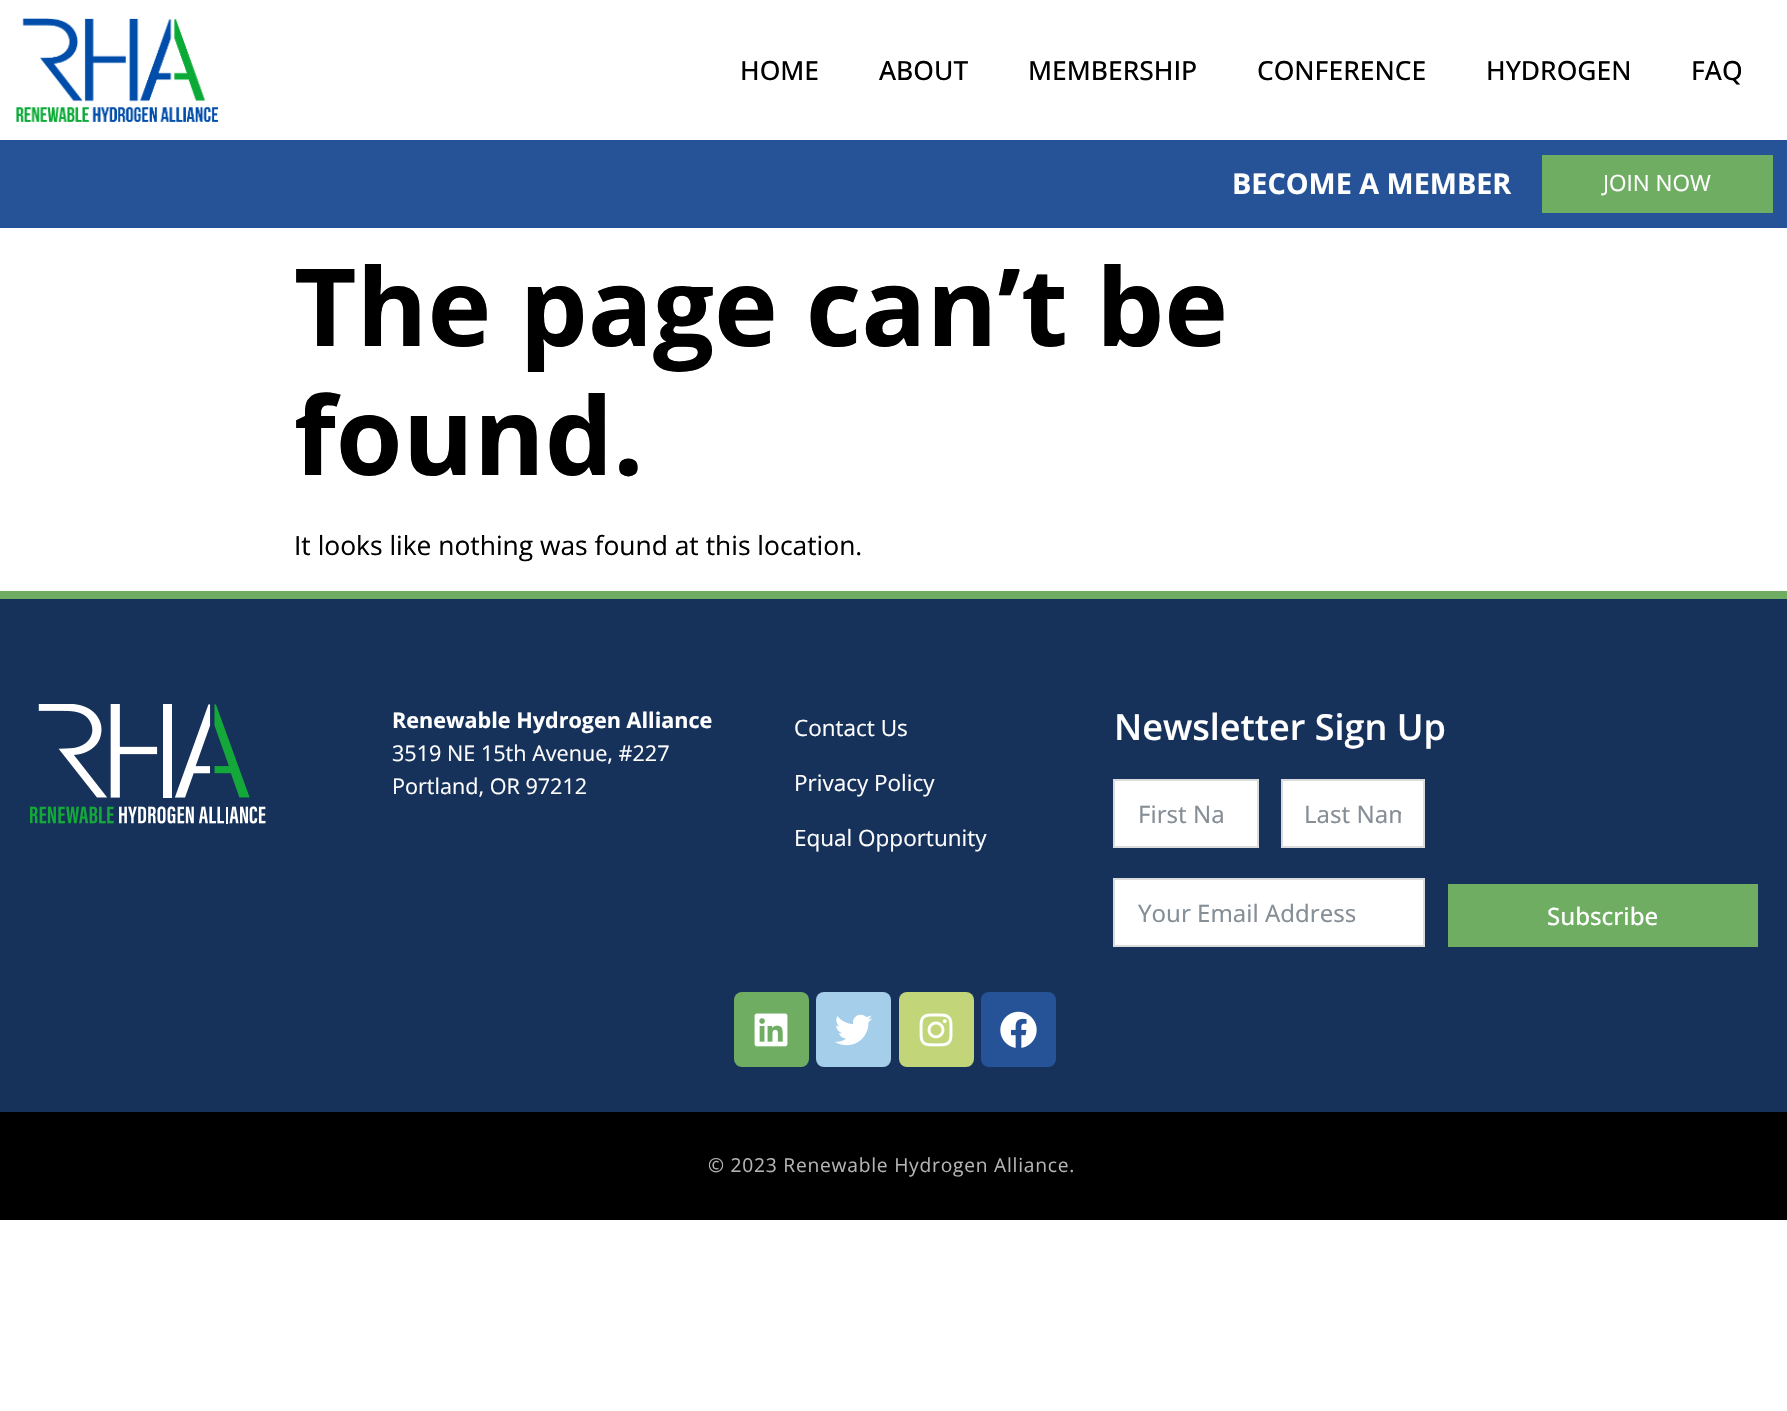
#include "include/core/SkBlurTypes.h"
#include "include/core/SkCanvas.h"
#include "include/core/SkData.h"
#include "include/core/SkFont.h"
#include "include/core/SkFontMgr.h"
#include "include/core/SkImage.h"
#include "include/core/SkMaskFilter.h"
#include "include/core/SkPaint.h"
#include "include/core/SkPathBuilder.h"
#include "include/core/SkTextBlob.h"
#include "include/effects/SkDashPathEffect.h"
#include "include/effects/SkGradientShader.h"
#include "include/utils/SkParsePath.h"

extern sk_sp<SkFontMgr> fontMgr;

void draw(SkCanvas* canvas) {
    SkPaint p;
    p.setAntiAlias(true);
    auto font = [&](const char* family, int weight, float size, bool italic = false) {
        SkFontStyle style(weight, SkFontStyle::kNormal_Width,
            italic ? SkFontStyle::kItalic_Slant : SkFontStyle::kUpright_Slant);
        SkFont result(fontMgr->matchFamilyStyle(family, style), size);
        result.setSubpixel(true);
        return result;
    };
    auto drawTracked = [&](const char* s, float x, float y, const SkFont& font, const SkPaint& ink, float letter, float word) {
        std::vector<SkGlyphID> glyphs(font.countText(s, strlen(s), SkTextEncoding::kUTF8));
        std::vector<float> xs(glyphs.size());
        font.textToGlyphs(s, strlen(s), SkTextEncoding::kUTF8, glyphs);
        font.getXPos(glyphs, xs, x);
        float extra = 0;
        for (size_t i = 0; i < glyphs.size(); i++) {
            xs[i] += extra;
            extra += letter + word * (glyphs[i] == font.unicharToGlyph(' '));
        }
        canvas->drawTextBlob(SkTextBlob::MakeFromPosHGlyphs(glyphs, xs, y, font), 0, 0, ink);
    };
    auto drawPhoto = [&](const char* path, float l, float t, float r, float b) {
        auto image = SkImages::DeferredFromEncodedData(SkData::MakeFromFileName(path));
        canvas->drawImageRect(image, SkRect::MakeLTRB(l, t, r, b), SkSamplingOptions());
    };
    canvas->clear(0xFFFFFFFF);
    drawPhoto("media/1.png", 16, 18, 219, 122);
    auto font1 = font("Open Sans", 500, 26.4f);
    p.setColor(0xFF000000);
    {
        const struct { const char* s; float x, y; } items[] = {
            {"HOME", 740, 80},
            {"ABOUT", 879, 80},
            {"MEMBERSHIP", 1028, 80},
            {"CONFERENCE", 1257, 80},
            {"HYDROGEN", 1486, 80},
            {"FAQ", 1691, 80},
        };
        for (auto [s, x, y] : items) {
            canvas->drawString(s, x, y, font1, p);
        }
    }
    p.setColor(0xFF265398);
    canvas->drawRect(SkRect::MakeLTRB(0, 140, 1787, 228), p);
    auto font2 = font("Open Sans", 700, 28.75f);
    p.setColor(0xFFFFFFFF);
    canvas->drawString("BECOME A MEMBER", 1232, 194, font2, p);
    p.setColor(0xFF6FAD62);
    canvas->drawRect(SkRect::MakeLTRB(1542, 155, 1773, 213), p);
    auto font3 = font("Open Sans", 400, 22.5f);
    p.setColor(0xFFFFFFFF);
    canvas->drawString("JOIN NOW", 1603, 191, font3, p);
    auto font4 = font("Open Sans", 700, 108);
    p.setColor(0xFF000000);
    canvas->drawString("The page can’t be", 294, 346, font4, p);
    canvas->drawString("found.", 294, 475, font4, p);
    auto font5 = font("Open Sans", 400, 26.4f);
    canvas->drawString("It looks like nothing was found at this location.", 294, 555, font5, p);
    p.setColor(0xFF16315A);
    canvas->drawRect(SkRect::MakeLTRB(0, 599, 1787, 1112), p);
    p.setColor(0xFF6FAD62);
    canvas->drawRect(SkRect::MakeLTRB(0, 591, 1787, 599), p);
    drawPhoto("media/2.png", 30, 704, 266, 824);
    auto font6 = font("Open Sans", 700, 21.6f);
    p.setColor(0xFFFFFFFF);
    canvas->drawString("Renewable Hydrogen Alliance", 392, 728, font6, p);
    auto font7 = font("Open Sans", 400, 21.6f);
    canvas->drawString("3519 NE 15th Avenue, #227", 392, 761, font7, p);
    canvas->drawString("Portland, OR 97212", 392, 794, font7, p);
    {
        const struct { const char* s; float x, y; } items[] = {
            {"Contact Us", 794, 736},
            {"Privacy Policy", 794, 791},
            {"Equal Opportunity", 794, 846},
        };
        for (auto [s, x, y] : items) {
            canvas->drawString(s, x, y, font3, p);
        }
    }
    auto font8 = font("Open Sans", 600, 36);
    canvas->drawString("Newsletter Sign Up", 1114, 740, font8, p);
    canvas->drawRect(SkRect::MakeLTRB(1114, 780, 1258, 847), p);
    p.setStyle(SkPaint::kStroke_Style);
    p.setStrokeWidth(2);
    p.setColor(0xFFDADBDD);
    canvas->drawRect(SkRect::MakeLTRB(1114, 780, 1258, 847), p);
    auto font9 = font("Noto Sans", 400, 24);
    p.setStyle(SkPaint::kFill_Style);
    p.setColor(0xFF868E96);
    canvas->drawString("First Na", 1138, 823, font9, p);
    p.setColor(0xFFFFFFFF);
    canvas->drawRect(SkRect::MakeLTRB(1282, 780, 1424, 847), p);
    p.setStyle(SkPaint::kStroke_Style);
    p.setColor(0xFFDADBDD);
    canvas->drawRect(SkRect::MakeLTRB(1282, 780, 1424, 847), p);
    canvas->save();
    canvas->clipRect(SkRect::MakeLTRB(1305, 797, 1401, 830));
    p.setStyle(SkPaint::kFill_Style);
    p.setColor(0xFF868E96);
    canvas->drawString("Last Nam", 1304, 823, font9, p);
    canvas->restore();
    p.setColor(0xFFFFFFFF);
    canvas->drawRect(SkRect::MakeLTRB(1114, 879, 1424, 946), p);
    p.setStyle(SkPaint::kStroke_Style);
    p.setColor(0xFFDADBDD);
    canvas->drawRect(SkRect::MakeLTRB(1114, 879, 1424, 946), p);
    p.setStyle(SkPaint::kFill_Style);
    p.setColor(0xFF868E96);
    canvas->drawString("Your Email Address", 1138, 922, font9, p);
    p.setColor(0xFF6FAD62);
    canvas->drawRect(SkRect::MakeLTRB(1448, 884, 1758, 947), p);
    auto font10 = font("Open Sans", 500, 24);
    p.setColor(0xFFFFFFFF);
    canvas->drawString("Subscribe", 1547, 925, font10, p);
    p.setColor(0xFF6FAD62);
    canvas->drawRoundRect(SkRect::MakeLTRB(734, 992, 809, 1067), 8, 8, p);
    drawPhoto("media/3.png", 754, 1013, 788, 1047);
    p.setColor(0xFFA5CEEA);
    canvas->drawRoundRect(SkRect::MakeLTRB(816, 992, 891, 1067), 8, 8, p);
    drawPhoto("media/4.png", 835, 1014, 872, 1046);
    p.setColor(0xFFC2D679);
    canvas->drawRoundRect(SkRect::MakeLTRB(899, 992, 974, 1067), 8, 8, p);
    drawPhoto("media/5.png", 919, 1013, 953, 1047);
    p.setColor(0xFF265398);
    canvas->drawRoundRect(SkRect::MakeLTRB(981, 992, 1056, 1067), 8, 8, p);
    drawPhoto("media/6.png", 1000, 1011, 1037, 1048);
    p.setColor(0xFF000000);
    canvas->drawRect(SkRect::MakeLTRB(0, 1112, 1787, 1220), p);
    auto font11 = font("Open Sans", 400, 19.25f);
    p.setColor(0xFFB4B4B4);
    drawTracked("© 2023 Renewable Hydrogen Alliance.", 708, 1172, font11, p, 0.75f, 0);
}
